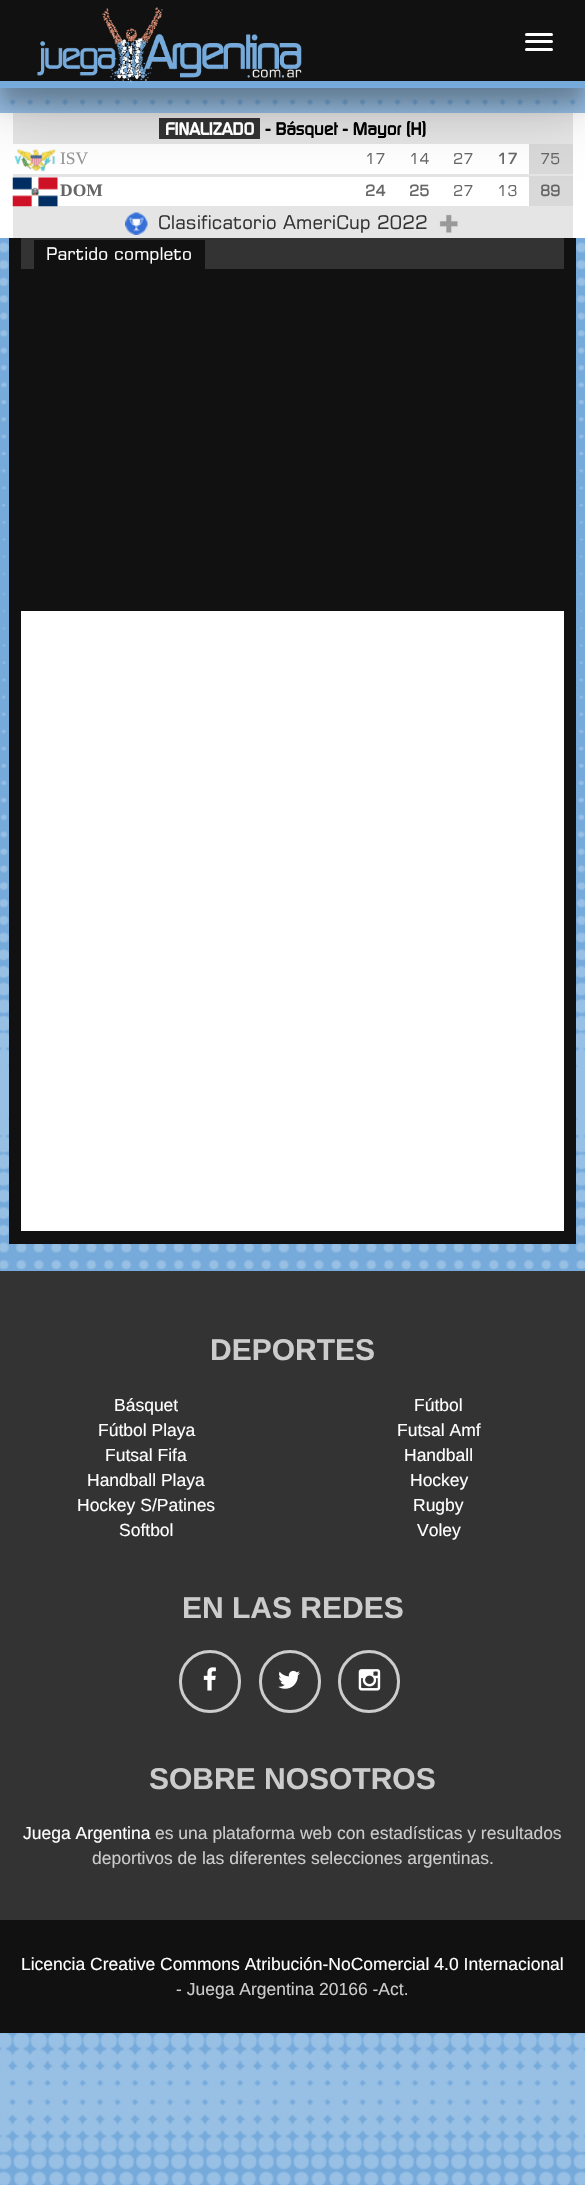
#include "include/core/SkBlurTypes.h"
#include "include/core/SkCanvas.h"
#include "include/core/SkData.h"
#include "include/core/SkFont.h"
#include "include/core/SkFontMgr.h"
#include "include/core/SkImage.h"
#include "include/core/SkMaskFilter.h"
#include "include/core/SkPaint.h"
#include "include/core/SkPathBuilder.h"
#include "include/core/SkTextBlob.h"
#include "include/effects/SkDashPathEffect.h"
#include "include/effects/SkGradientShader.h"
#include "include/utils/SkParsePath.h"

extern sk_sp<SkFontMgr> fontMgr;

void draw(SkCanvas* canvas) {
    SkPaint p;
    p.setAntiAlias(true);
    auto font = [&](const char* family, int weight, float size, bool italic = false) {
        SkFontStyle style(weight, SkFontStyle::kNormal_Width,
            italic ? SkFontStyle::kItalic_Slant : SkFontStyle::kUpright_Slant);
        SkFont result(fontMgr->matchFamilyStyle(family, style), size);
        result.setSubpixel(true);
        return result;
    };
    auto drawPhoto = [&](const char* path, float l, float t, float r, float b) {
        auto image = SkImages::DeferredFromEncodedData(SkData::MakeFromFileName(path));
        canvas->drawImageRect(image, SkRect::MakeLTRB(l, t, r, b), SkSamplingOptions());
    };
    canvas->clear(0xFFFFFFFF);
    drawPhoto("media/1.png", 0, 88, 585, 2185);
    {
        const struct { float l, t, r, b; SkColor color; } items[] = {
            {0, 113, 585, 238, 0xFFFFFFFF},
            {13, 113, 573, 144, 0xFFE5E5E5},
            {159, 118, 260, 139, 0xFF333333},
            {13, 174, 573, 177, 0xFFE5E5E5},
        };
        for (auto [l, t, r, b, color] : items) {
            p.setColor(color);
            canvas->drawRect(SkRect::MakeLTRB(l, t, r, b), p);
        }
    }
    drawPhoto("media/3.png", 14, 148, 56, 172);
    p.setColor(0xFFD9D9D9);
    canvas->drawRect(SkRect::MakeLTRB(529, 144, 573, 174), p);
    p.setColor(0xFFE5E5E5);
    canvas->drawRect(SkRect::MakeLTRB(13, 206, 573, 238), p);
    drawPhoto("media/4.png", 12, 177, 58, 207);
    p.setColor(0xFFD9D9D9);
    canvas->drawRect(SkRect::MakeLTRB(529, 176, 573, 206), p);
    p.setColor(0x30000000);
    p.setMaskFilter(SkMaskFilter::MakeBlur(kNormal_SkBlurStyle, 31));
    canvas->drawRect(SkRect::MakeLTRB(0, 21, 585, 109), p);
    p.setMaskFilter(nullptr);
    p.setColor(0x3D000000);
    p.setMaskFilter(SkMaskFilter::MakeBlur(kNormal_SkBlurStyle, 9.5f));
    canvas->drawRect(SkRect::MakeLTRB(0, 15, 585, 103), p);
    p.setMaskFilter(nullptr);
    p.setColor(0xFF111111);
    canvas->drawRect(SkRect::MakeLTRB(0, 0, 585, 81), p);
    p.setColor(0xFF75AADB);
    canvas->drawRect(SkRect::MakeLTRB(0, 81, 585, 88), p);
    drawPhoto("media/2.png", 37, 7, 302, 83);
    p.setColor(0xFFFFFFFF);
    canvas->drawRoundRect(SkRect::MakeLTRB(525, 33, 553, 36), 1.5f, 1.5f, p);
    canvas->drawRoundRect(SkRect::MakeLTRB(525, 40, 553, 43), 1.5f, 1.5f, p);
    canvas->drawRoundRect(SkRect::MakeLTRB(525, 48, 553, 51), 1.5f, 1.5f, p);
    auto font1 = font("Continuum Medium", 700, 17.5f);
    canvas->drawString("FINALIZADO", 165, 135, font1, p);
    p.setColor(0xFF000000);
    canvas->drawString("- Básquet - Mayor (H)", 265, 135, font1, p);
    auto font2 = font("Liberation Serif", 400, 17.5f);
    p.setColor(0xFF949494);
    canvas->drawString("ISV", 60, 164, font2, p);
    auto font3 = font("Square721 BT", 400, 15);
    p.setColor(0xFF666666);
    {
        const struct { const char* s; float x, y; } items[] = {
            {"17", 365, 164},
            {"14", 409, 164},
            {"27", 453, 164},
        };
        for (auto [s, x, y] : items) {
            canvas->drawString(s, x, y, font3, p);
        }
    }
    auto font4 = font("Square721 BT", 700, 15);
    canvas->drawString("17", 497, 164, font4, p);
    canvas->drawString("75", 540, 164, font3, p);
    auto font5 = font("Liberation Serif", 700, 17.5f);
    canvas->drawString("DOM", 60, 196, font5, p);
    canvas->drawString("24", 365, 196, font4, p);
    canvas->drawString("25", 409, 196, font4, p);
    canvas->drawString("27", 453, 196, font3, p);
    canvas->drawString("13", 497, 196, font3, p);
    canvas->drawString("89", 540, 196, font4, p);
    drawPhoto("media/5.png", 125, 212, 148, 235);
    auto font6 = font("Square721 BT", 400, 18.75f);
    p.setColor(0xFF333333);
    canvas->drawString("Clasificatorio AmeriCup 2022", 158, 229, font6, p);
    drawPhoto("media/6.png", 439, 214, 458, 233);
    {
        const struct { float l, t, r, b; SkColor color; } items[] = {
            {9, 269, 576, 1244, 0xFF111111},
            {21, 238, 564, 269, 0xFF333333},
            {564, 238, 576, 269, 0xFF111111},
            {9, 238, 21, 269, 0xFF111111},
            {34, 240, 205, 269, 0xFF111111},
        };
        for (auto [l, t, r, b, color] : items) {
            p.setColor(color);
            canvas->drawRect(SkRect::MakeLTRB(l, t, r, b), p);
        }
    }
    auto font7 = font("Square721 BT", 400, 17.5f);
    p.setColor(0xFFFFFFFF);
    canvas->drawString("Partido completo", 46, 260, font7, p);
    canvas->drawRect(SkRect::MakeLTRB(21, 611, 564, 1231), p);
    p.setColor(0xFF333333);
    canvas->drawRect(SkRect::MakeLTRB(0, 1271, 585, 1920), p);
    auto font8 = font("Liberation Sans", 700, 30);
    p.setColor(0xFFCCCCCC);
    canvas->drawString("DEPORTES", 210, 1360, font8, p);
    auto font9 = font("Liberation Sans", 400, 17.5f);
    p.setColor(0xFFFFFFFF);
    {
        const struct { const char* s; float x, y; } items[] = {
            {"Básquet", 114, 1411},
            {"Fútbol", 414, 1411},
            {"Fútbol Playa", 98, 1436},
            {"Futsal Amf", 397, 1436},
            {"Futsal Fifa", 105, 1461},
            {"Handball", 404, 1461},
            {"Handball Playa", 87, 1486},
            {"Hockey", 410, 1486},
            {"Hockey S/Patines", 77, 1511},
            {"Rugby", 413, 1511},
            {"Softbol", 119, 1536},
            {"Voley", 417, 1536},
        };
        for (auto [s, x, y] : items) {
            canvas->drawString(s, x, y, font9, p);
        }
    }
    p.setColor(0xFFCCCCCC);
    canvas->drawString("EN LAS REDES", 182, 1618, font8, p);
    p.setStyle(SkPaint::kStroke_Style);
    p.setStrokeWidth(3);
    canvas->drawRoundRect(SkRect::MakeLTRB(180.5f, 1651.5f, 239.5f, 1711.5f), 29.5f, 29.5f, p);
    drawPhoto("media/7.png", 203, 1667, 216, 1691);
    canvas->drawRoundRect(SkRect::MakeLTRB(260.5f, 1651.5f, 319.5f, 1711.5f), 29.5f, 29.5f, p);
    drawPhoto("media/8.png", 278, 1670, 300, 1689);
    canvas->drawRoundRect(SkRect::MakeLTRB(339.5f, 1651.5f, 398.5f, 1711.5f), 29.5f, 29.5f, p);
    drawPhoto("media/9.png", 358, 1669, 381, 1691);
    p.setStyle(SkPaint::kFill_Style);
    canvas->drawString("SOBRE NOSOTROS", 149, 1789, font8, p);
    p.setColor(0xFFFFFFFF);
    canvas->drawString("Juega Argentina", 23, 1839, font9, p);
    p.setColor(0xFFCCCCCC);
    canvas->drawString("es una plataforma web con estadísticas y resultados", 155, 1839, font9, p);
    canvas->drawString("deportivos de las diferentes selecciones argentinas.", 92, 1864, font9, p);
    p.setColor(0xFF111111);
    canvas->drawRect(SkRect::MakeLTRB(0, 1920, 585, 2033), p);
    p.setColor(0xFFFFFFFF);
    canvas->drawString("Licencia Creative Commons Atribución-NoComercial 4.0 Internacional", 21, 1970, font9, p);
    p.setColor(0xFFCCCCCC);
    canvas->drawString("- Juega Argentina 20166 -Act.", 176, 1995, font9, p);
}
